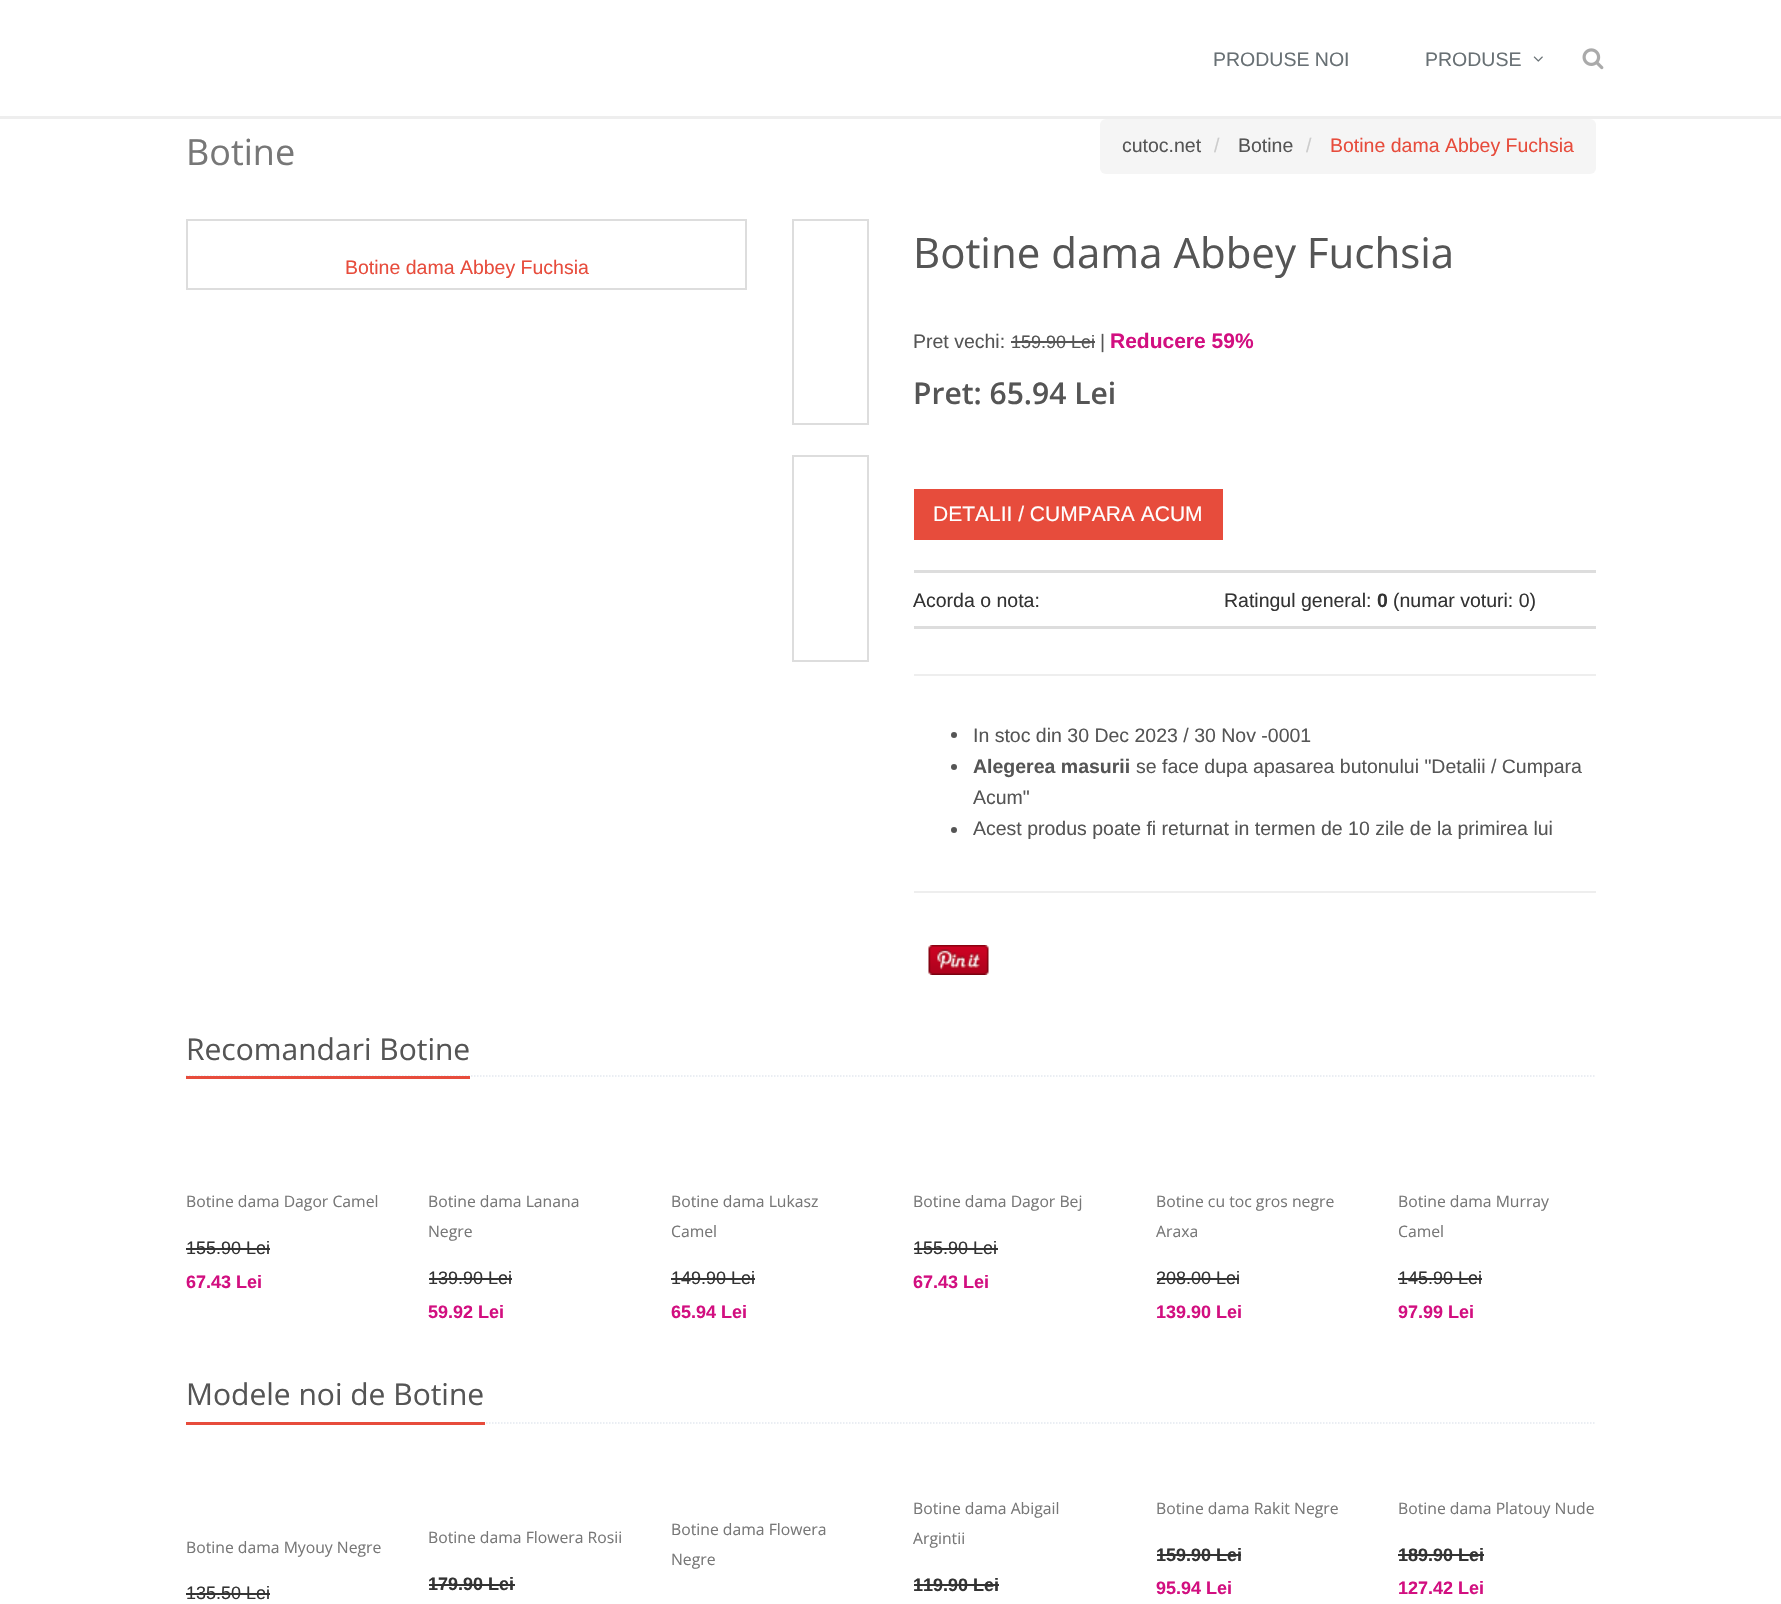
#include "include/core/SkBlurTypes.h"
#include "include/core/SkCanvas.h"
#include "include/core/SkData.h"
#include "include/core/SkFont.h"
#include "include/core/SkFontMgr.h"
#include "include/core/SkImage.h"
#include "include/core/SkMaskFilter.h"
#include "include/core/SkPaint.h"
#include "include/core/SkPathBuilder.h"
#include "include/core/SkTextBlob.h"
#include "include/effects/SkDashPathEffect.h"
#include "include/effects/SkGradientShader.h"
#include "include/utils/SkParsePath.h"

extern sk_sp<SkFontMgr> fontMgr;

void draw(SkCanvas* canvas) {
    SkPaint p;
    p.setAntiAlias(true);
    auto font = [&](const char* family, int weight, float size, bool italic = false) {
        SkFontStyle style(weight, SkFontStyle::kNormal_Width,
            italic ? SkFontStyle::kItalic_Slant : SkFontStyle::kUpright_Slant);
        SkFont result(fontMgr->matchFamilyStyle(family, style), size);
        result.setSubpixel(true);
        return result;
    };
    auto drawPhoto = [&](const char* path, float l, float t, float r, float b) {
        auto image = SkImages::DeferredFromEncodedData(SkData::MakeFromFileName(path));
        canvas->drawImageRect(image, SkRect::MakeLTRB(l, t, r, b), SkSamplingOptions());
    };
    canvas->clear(0xFFFFFFFF);
    p.setColor(0xFFEEEEEE);
    canvas->drawRect(SkRect::MakeLTRB(0, 116, 1781, 119), p);
    auto font1 = font("Liberation Sans", 400, 19.5f);
    p.setColor(0xFF687074);
    canvas->drawString("PRODUSE NOI", 1213, 66, font1, p);
    canvas->drawString("PRODUSE", 1425, 66, font1, p);
    drawPhoto("media/1.png", 1533, 56, 1543, 62);
    drawPhoto("media/2.png", 1582, 48, 1604, 70);
    auto font2 = font("Open Sans", 400, 36);
    p.setColor(0xFF777777);
    canvas->drawString("Botine", 186, 165, font2, p);
    p.setColor(0xFFF5F5F5);
    canvas->drawRoundRect(SkRect::MakeLTRB(1100, 119, 1596, 174), 6, 6, p);
    p.setColor(0xFF555555);
    canvas->drawString("cutoc.net", 1122, 152, font1, p);
    p.setColor(0xFFCCCCCC);
    canvas->drawString("/", 1214, 152, font1, p);
    p.setColor(0xFF555555);
    canvas->drawString("Botine", 1238, 152, font1, p);
    p.setColor(0xFFCCCCCC);
    canvas->drawString("/", 1306, 152, font1, p);
    p.setColor(0xFFE74C3C);
    canvas->drawString("Botine dama Abbey Fuchsia", 1330, 152, font1, p);
    p.setStyle(SkPaint::kStroke_Style);
    p.setStrokeWidth(2);
    p.setColor(0xFFDDDDDD);
    canvas->drawRect(SkRect::MakeLTRB(187, 220, 746, 289), p);
    p.setStyle(SkPaint::kFill_Style);
    p.setColor(0xFFE74C3C);
    canvas->drawString("Botine dama Abbey Fuchsia", 345, 274, font1, p);
    p.setStyle(SkPaint::kStroke_Style);
    p.setColor(0xFFDDDDDD);
    canvas->drawRect(SkRect::MakeLTRB(793, 220, 868, 424), p);
    canvas->drawRect(SkRect::MakeLTRB(793, 456, 868, 661), p);
    auto font3 = font("Open Sans", 400, 42);
    p.setStyle(SkPaint::kFill_Style);
    p.setColor(0xFF555555);
    canvas->drawString("Botine dama Abbey Fuchsia", 913, 268, font3, p);
    canvas->drawString("Pret vechi:", 913, 348, font1, p);
    auto font4 = font("Liberation Sans", 400, 18);
    canvas->drawString("159.90 Lei", 1011, 348, font4, p);
    canvas->drawRect(SkRect::MakeLTRB(1011, 341, 1095, 343), p);
    canvas->drawString("|", 1100, 348, font1, p);
    auto font5 = font("Liberation Sans", 700, 21);
    p.setColor(0xFFD20F80);
    canvas->drawString("Reducere 59%", 1110, 348, font5, p);
    auto font6 = font("Open Sans", 600, 30);
    p.setColor(0xFF555555);
    canvas->drawString("Pret: 65.94 Lei", 913, 404, font6, p);
    p.setColor(0xFFE74C3C);
    canvas->drawRect(SkRect::MakeLTRB(914, 489, 1223, 540), p);
    auto font7 = font("Liberation Sans", 400, 21);
    p.setColor(0xFFFFFFFF);
    canvas->drawString("DETALII / CUMPARA ACUM", 933, 521, font7, p);
    p.setColor(0xFFDDDDDD);
    canvas->drawRect(SkRect::MakeLTRB(914, 570, 1596, 573), p);
    p.setColor(0xFF333333);
    canvas->drawString("Acorda o nota:", 913, 607, font1, p);
    canvas->drawString("Ratingul general:", 1224, 607, font1, p);
    auto font8 = font("Liberation Sans", 700, 19.5f);
    canvas->drawString("0", 1377, 607, font8, p);
    canvas->drawString("(numar voturi: 0)", 1393, 607, font1, p);
    p.setColor(0xFFDDDDDD);
    canvas->drawRect(SkRect::MakeLTRB(914, 626, 1596, 629), p);
    p.setColor(0xFFEEEEEE);
    canvas->drawRect(SkRect::MakeLTRB(914, 674, 1596, 676), p);
    p.setColor(0xFF555555);
    canvas->drawCircle(954, 735, 3, p);
    canvas->drawString("In stoc din 30 Dec 2023 / 30 Nov -0001", 973, 742, font1, p);
    canvas->drawCircle(954, 767, 3, p);
    canvas->drawString("Alegerea masurii", 973, 773, font8, p);
    canvas->drawString("se face dupa apasarea butonului \"Detalii / Cumpara", 1136, 773, font1, p);
    canvas->drawString("Acum\"", 973, 804, font1, p);
    canvas->drawCircle(954, 830, 3, p);
    canvas->drawString("Acest produs poate fi returnat in termen de 10 zile de la primirea lui", 973, 835, font1, p);
    p.setColor(0xFFEEEEEE);
    canvas->drawRect(SkRect::MakeLTRB(914, 891, 1596, 893), p);
    drawPhoto("media/3.png", 928, 945, 989, 975);
    p.setStyle(SkPaint::kStroke_Style);
    p.setStrokeWidth(1.5f);
    p.setColor(0xFFE4E9F0);
    p.setPathEffect(SkDashPathEffect::Make({{1.5f, 1.5f}}, 0));
    canvas->drawPath(SkPathBuilder().moveTo(186, 1076).lineTo(1596, 1076).detach(), p);
    p.setPathEffect(nullptr);
    p.setStyle(SkPaint::kFill_Style);
    p.setColor(0xFFE74C3C);
    canvas->drawRect(SkRect::MakeLTRB(186, 1076, 470, 1079), p);
    auto font9 = font("Open Sans", 400, 30);
    p.setColor(0xFF555555);
    canvas->drawString("Recomandari Botine", 186, 1060, font9, p);
    auto font10 = font("Open Sans", 400, 15.75f);
    p.setColor(0xFF777777);
    canvas->drawString("Botine dama Dagor Camel", 186, 1207, font10, p);
    p.setColor(0xFF333333);
    canvas->drawString("155.90 Lei", 186, 1254, font4, p);
    canvas->drawRect(SkRect::MakeLTRB(186, 1248, 270, 1250), p);
    auto font11 = font("Liberation Sans", 700, 18);
    p.setColor(0xFFD20F80);
    canvas->drawString("67.43 Lei", 186, 1288, font11, p);
    p.setColor(0xFF777777);
    canvas->drawString("Botine dama Lanana", 428, 1207, font10, p);
    canvas->drawString("Negre", 428, 1237, font10, p);
    p.setColor(0xFF333333);
    canvas->drawString("139.90 Lei", 428, 1284, font4, p);
    canvas->drawRect(SkRect::MakeLTRB(429, 1278, 512, 1280), p);
    p.setColor(0xFFD20F80);
    canvas->drawString("59.92 Lei", 428, 1318, font11, p);
    p.setColor(0xFF777777);
    canvas->drawString("Botine dama Lukasz", 671, 1207, font10, p);
    canvas->drawString("Camel", 671, 1237, font10, p);
    p.setColor(0xFF333333);
    canvas->drawString("149.90 Lei", 671, 1284, font4, p);
    canvas->drawRect(SkRect::MakeLTRB(671, 1278, 755, 1280), p);
    p.setColor(0xFFD20F80);
    canvas->drawString("65.94 Lei", 671, 1318, font11, p);
    p.setColor(0xFF777777);
    canvas->drawString("Botine dama Dagor Bej", 913, 1207, font10, p);
    p.setColor(0xFF333333);
    canvas->drawString("155.90 Lei", 913, 1254, font4, p);
    canvas->drawRect(SkRect::MakeLTRB(914, 1248, 998, 1250), p);
    p.setColor(0xFFD20F80);
    canvas->drawString("67.43 Lei", 913, 1288, font11, p);
    p.setColor(0xFF777777);
    canvas->drawString("Botine cu toc gros negre", 1156, 1207, font10, p);
    canvas->drawString("Araxa", 1156, 1237, font10, p);
    p.setColor(0xFF333333);
    canvas->drawString("208.00 Lei", 1156, 1284, font4, p);
    canvas->drawRect(SkRect::MakeLTRB(1157, 1278, 1239, 1280), p);
    p.setColor(0xFFD20F80);
    canvas->drawString("139.90 Lei", 1156, 1318, font11, p);
    p.setColor(0xFF777777);
    canvas->drawString("Botine dama Murray", 1398, 1207, font10, p);
    canvas->drawString("Camel", 1398, 1237, font10, p);
    p.setColor(0xFF333333);
    canvas->drawString("145.90 Lei", 1398, 1284, font4, p);
    canvas->drawRect(SkRect::MakeLTRB(1398, 1278, 1482, 1280), p);
    p.setColor(0xFFD20F80);
    canvas->drawString("97.99 Lei", 1398, 1318, font11, p);
    p.setStyle(SkPaint::kStroke_Style);
    p.setColor(0xFFE4E9F0);
    p.setPathEffect(SkDashPathEffect::Make({{1.5f, 1.5f}}, 0));
    canvas->drawPath(SkPathBuilder().moveTo(186, 1423).lineTo(1596, 1423).detach(), p);
    p.setPathEffect(nullptr);
    p.setStyle(SkPaint::kFill_Style);
    p.setColor(0xFFE74C3C);
    canvas->drawRect(SkRect::MakeLTRB(186, 1422, 485, 1425), p);
    p.setColor(0xFF555555);
    canvas->drawString("Modele noi de Botine", 186, 1405, font9, p);
    p.setColor(0xFF777777);
    canvas->drawString("Botine dama Myouy Negre", 186, 1553, font10, p);
    p.setColor(0xFF333333);
    canvas->drawString("135.50 Lei", 186, 1599, font4, p);
    canvas->drawRect(SkRect::MakeLTRB(186, 1593, 270, 1595), p);
    p.setColor(0xFF777777);
    canvas->drawString("Botine dama Flowera Rosii", 428, 1543, font10, p);
    p.setColor(0xFF333333);
    canvas->drawString("179.90 Lei", 428, 1590, font11, p);
    canvas->drawRect(SkRect::MakeLTRB(429, 1584, 515, 1586), p);
    p.setColor(0xFF777777);
    {
        const struct { const char* s; float x, y; } items[] = {
            {"Botine dama Flowera", 671, 1535},
            {"Negre", 671, 1565},
            {"Botine dama Abigail", 913, 1514},
            {"Argintii", 913, 1544},
        };
        for (auto [s, x, y] : items) {
            canvas->drawString(s, x, y, font10, p);
        }
    }
    p.setColor(0xFF333333);
    canvas->drawString("119.90 Lei", 913, 1591, font11, p);
    canvas->drawRect(SkRect::MakeLTRB(914, 1584, 999, 1586), p);
    p.setColor(0xFF777777);
    canvas->drawString("Botine dama Rakit Negre", 1156, 1514, font10, p);
    p.setColor(0xFF333333);
    canvas->drawString("159.90 Lei", 1156, 1561, font11, p);
    canvas->drawRect(SkRect::MakeLTRB(1157, 1554, 1241, 1556), p);
    p.setColor(0xFFD20F80);
    canvas->drawString("95.94 Lei", 1156, 1594, font11, p);
    p.setColor(0xFF777777);
    canvas->drawString("Botine dama Platouy Nude", 1398, 1514, font10, p);
    p.setColor(0xFF333333);
    canvas->drawString("189.90 Lei", 1398, 1561, font11, p);
    canvas->drawRect(SkRect::MakeLTRB(1398, 1554, 1484, 1556), p);
    p.setColor(0xFFD20F80);
    canvas->drawString("127.42 Lei", 1398, 1594, font11, p);
}
